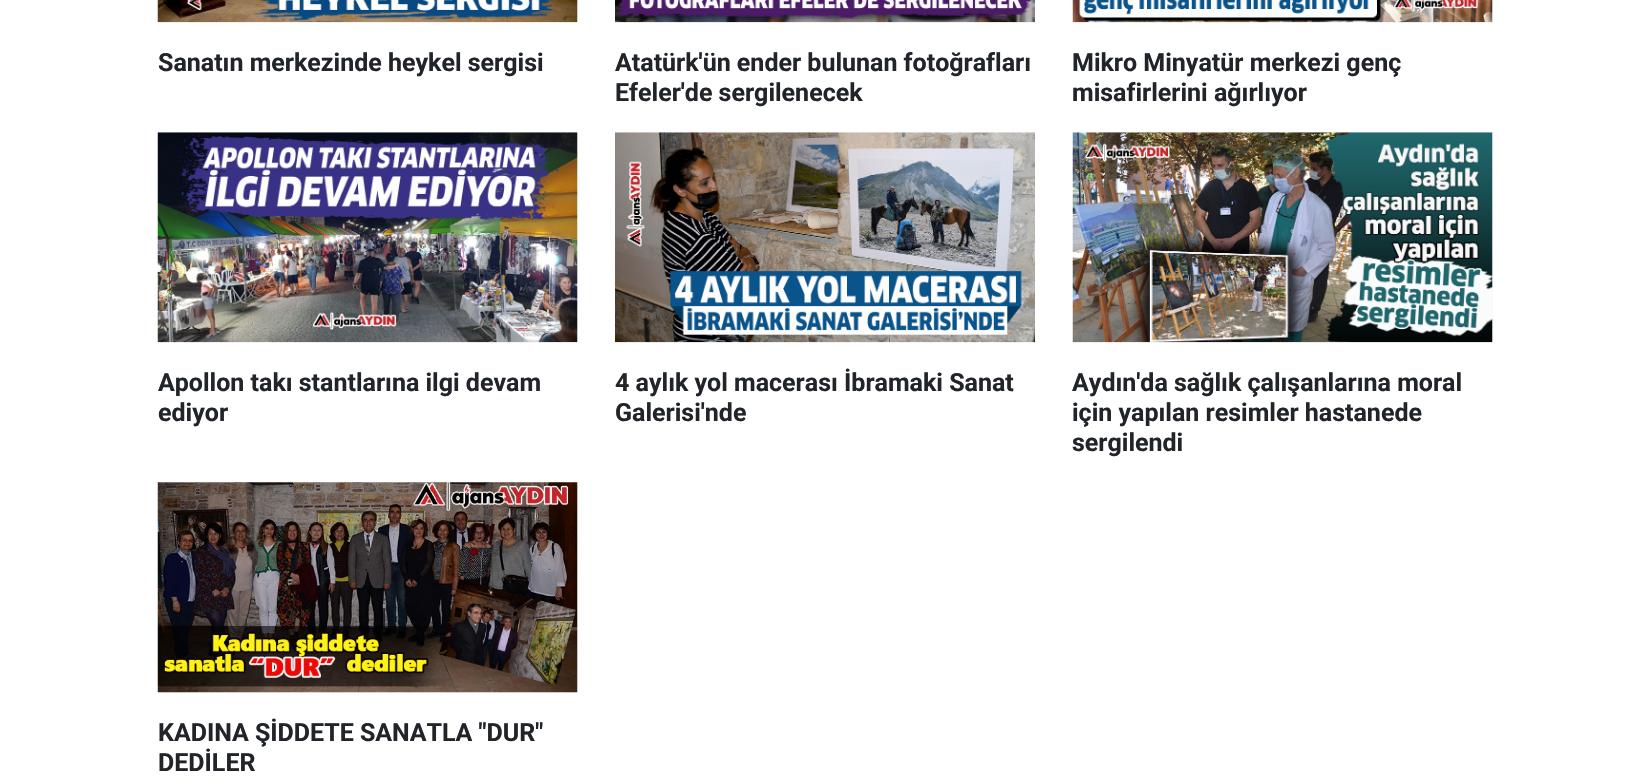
#include "include/core/SkBlurTypes.h"
#include "include/core/SkCanvas.h"
#include "include/core/SkData.h"
#include "include/core/SkFont.h"
#include "include/core/SkFontMgr.h"
#include "include/core/SkImage.h"
#include "include/core/SkMaskFilter.h"
#include "include/core/SkPaint.h"
#include "include/core/SkPathBuilder.h"
#include "include/core/SkTextBlob.h"
#include "include/effects/SkDashPathEffect.h"
#include "include/effects/SkGradientShader.h"
#include "include/utils/SkParsePath.h"

extern sk_sp<SkFontMgr> fontMgr;

void draw(SkCanvas* canvas) {
    SkPaint p;
    p.setAntiAlias(true);
    auto font = [&](const char* family, int weight, float size, bool italic = false) {
        SkFontStyle style(weight, SkFontStyle::kNormal_Width,
            italic ? SkFontStyle::kItalic_Slant : SkFontStyle::kUpright_Slant);
        SkFont result(fontMgr->matchFamilyStyle(family, style), size);
        result.setSubpixel(true);
        return result;
    };
    auto drawPhoto = [&](const char* path, float l, float t, float r, float b) {
        auto image = SkImages::DeferredFromEncodedData(SkData::MakeFromFileName(path));
        canvas->drawImageRect(image, SkRect::MakeLTRB(l, t, r, b), SkSamplingOptions());
    };
    canvas->clear(0xFFFFFFFF);
    p.setColor(0xFFF8F8F8);
    canvas->drawRect(SkRect::MakeLTRB(158, 0, 578, 23), p);
    drawPhoto("media/1.png", 157, 0, 578, 23);
    auto font1 = font("Roboto", 700, 25);
    p.setColor(0xFF212529);
    canvas->drawString("Sanatın merkezinde heykel sergisi", 158, 71, font1, p);
    p.setColor(0xFFF8F8F8);
    canvas->drawRect(SkRect::MakeLTRB(615, 22, 1035, 23), p);
    drawPhoto("media/2.png", 615, 0, 1035, 23);
    p.setColor(0xFF212529);
    canvas->drawString("Atatürk'ün ender bulunan fotoğrafları", 615, 71, font1, p);
    canvas->drawString("Efeler'de sergilenecek", 615, 101, font1, p);
    p.setColor(0xFFF8F8F8);
    canvas->drawRect(SkRect::MakeLTRB(1073, 0, 1493, 23), p);
    drawPhoto("media/3.png", 1072, 0, 1493, 23);
    p.setColor(0xFF212529);
    canvas->drawString("Mikro Minyatür merkezi genç", 1072, 71, font1, p);
    canvas->drawString("misafirlerini ağırlıyor", 1072, 101, font1, p);
    p.setColor(0xFFF8F8F8);
    canvas->drawRect(SkRect::MakeLTRB(158, 133, 578, 343), p);
    drawPhoto("media/4.png", 157, 132, 578, 343);
    p.setColor(0xFF212529);
    canvas->drawString("Apollon takı stantlarına ilgi devam", 158, 391, font1, p);
    canvas->drawString("ediyor", 158, 421, font1, p);
    p.setColor(0xFFF8F8F8);
    canvas->drawRect(SkRect::MakeLTRB(615, 342, 1035, 343), p);
    drawPhoto("media/5.png", 615, 132, 1035, 343);
    p.setColor(0xFF212529);
    canvas->drawString("4 aylık yol macerası İbramaki Sanat", 615, 391, font1, p);
    canvas->drawString("Galerisi'nde", 615, 421, font1, p);
    p.setColor(0xFFF8F8F8);
    canvas->drawRect(SkRect::MakeLTRB(1073, 133, 1493, 343), p);
    drawPhoto("media/6.png", 1072, 132, 1493, 343);
    p.setColor(0xFF212529);
    {
        const struct { const char* s; float x, y; } items[] = {
            {"Aydın'da sağlık çalışanlarına moral", 1072, 391},
            {"için yapılan resimler hastanede", 1072, 421},
            {"sergilendi", 1072, 451},
        };
        for (auto [s, x, y] : items) {
            canvas->drawString(s, x, y, font1, p);
        }
    }
    p.setColor(0xFFF8F8F8);
    canvas->drawRect(SkRect::MakeLTRB(158, 483, 578, 693), p);
    drawPhoto("media/7.png", 157, 482, 578, 693);
    p.setColor(0xFF212529);
    canvas->drawString("KADINA ŞİDDETE SANATLA \"DUR\"", 158, 741, font1, p);
    canvas->drawString("DEDİLER", 158, 771, font1, p);
}
